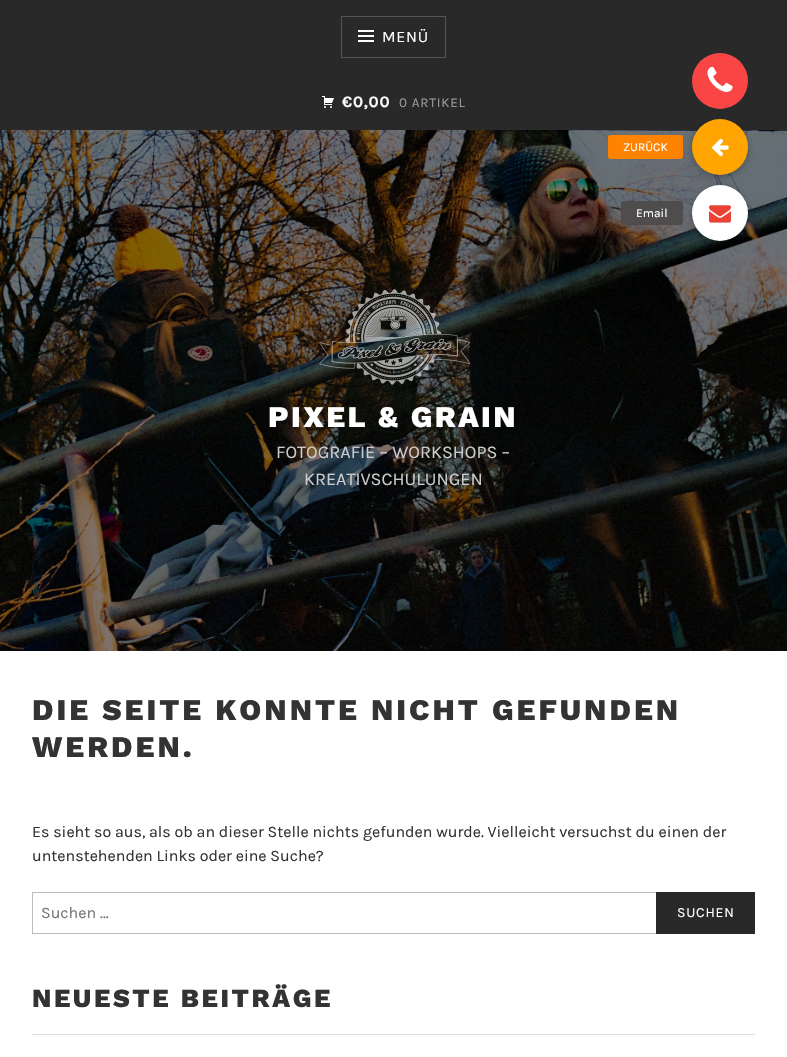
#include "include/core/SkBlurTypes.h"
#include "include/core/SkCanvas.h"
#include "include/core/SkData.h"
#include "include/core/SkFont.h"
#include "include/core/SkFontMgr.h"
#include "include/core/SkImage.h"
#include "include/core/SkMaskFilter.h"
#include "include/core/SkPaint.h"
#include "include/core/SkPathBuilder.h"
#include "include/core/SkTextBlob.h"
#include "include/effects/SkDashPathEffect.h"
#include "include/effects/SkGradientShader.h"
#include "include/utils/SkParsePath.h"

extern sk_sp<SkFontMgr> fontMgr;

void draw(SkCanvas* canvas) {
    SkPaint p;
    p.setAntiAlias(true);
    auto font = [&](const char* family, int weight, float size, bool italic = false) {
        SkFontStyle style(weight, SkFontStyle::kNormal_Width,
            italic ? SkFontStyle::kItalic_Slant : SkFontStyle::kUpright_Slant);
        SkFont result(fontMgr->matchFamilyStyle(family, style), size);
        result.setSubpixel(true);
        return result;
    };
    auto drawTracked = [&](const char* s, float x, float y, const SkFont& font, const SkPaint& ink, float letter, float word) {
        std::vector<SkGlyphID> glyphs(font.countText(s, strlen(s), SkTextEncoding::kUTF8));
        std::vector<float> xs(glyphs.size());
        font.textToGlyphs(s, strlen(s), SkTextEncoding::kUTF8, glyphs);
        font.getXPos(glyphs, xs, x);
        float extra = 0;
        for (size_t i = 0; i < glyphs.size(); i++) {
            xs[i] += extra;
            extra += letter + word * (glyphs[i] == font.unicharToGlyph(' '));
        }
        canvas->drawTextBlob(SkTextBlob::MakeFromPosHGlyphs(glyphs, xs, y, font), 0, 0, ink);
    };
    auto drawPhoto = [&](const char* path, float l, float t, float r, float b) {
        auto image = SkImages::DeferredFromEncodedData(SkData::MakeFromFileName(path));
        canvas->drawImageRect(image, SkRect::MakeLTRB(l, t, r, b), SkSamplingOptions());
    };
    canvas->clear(0xFFFFFFFF);
    p.setColor(0xFF29292A);
    canvas->drawRect(SkRect::MakeLTRB(0, 0, 787, 130), p);
    p.setStyle(SkPaint::kStroke_Style);
    p.setStrokeWidth(1);
    p.setColor(0xFF545455);
    canvas->drawRect(SkRect::MakeLTRB(341.5f, 16.5f, 445.5f, 57.5f), p);
    drawPhoto("media/1.png", 358, 30, 374, 42);
    auto font1 = font("Karla", 400, 16);
    p.setStyle(SkPaint::kFill_Style);
    p.setColor(0xFFFFFFFF);
    drawTracked("MENÜ", 382, 42, font1, p, 0.75f, 0);
    drawPhoto("media/2.png", 322, 96, 334, 108);
    auto font2 = font("Karla", 700, 16);
    drawTracked("€0,00", 342, 107, font2, p, 0.75f, 0);
    auto font3 = font("Karla", 400, 13.5f);
    p.setColor(0xFF999999);
    drawTracked("0 ARTIKEL", 399, 107, font3, p, 0.75f, 0);
    drawPhoto("media/3.png", 0, 130, 787, 651);
    drawPhoto("media/4.png", 319, 289, 471, 385);
    auto font4 = font("Work Sans", 800, 30);
    p.setColor(0xFFFFFFFF);
    drawTracked("PIXEL & GRAIN", 268, 427, font4, p, 2.4f, 0);
    auto font5 = font("Karla", 400, 18);
    p.setColor(0xFFCCCCCC);
    canvas->drawString("FOTOGRAFIE – WORKSHOPS –", 276, 458, font5, p);
    canvas->drawString("KREATIVSCHULUNGEN", 304, 485, font5, p);
    p.setColor(0xFF333333);
    drawTracked("DIE SEITE KONNTE NICHT GEFUNDEN", 32, 720, font4, p, 3, 0);
    drawTracked("WERDEN.", 32, 757, font4, p, 3, 0);
    canvas->drawString("Es sieht so aus, als ob an dieser Stelle nichts gefunden wurde. Vielleicht versuchst du einen der", 32, 837, font1, p);
    canvas->drawString("untenstehenden Links oder eine Suche?", 32, 861, font1, p);
    p.setStyle(SkPaint::kStroke_Style);
    p.setColor(0xFFBBBBBB);
    canvas->drawRect(SkRect::MakeLTRB(32.5f, 892.5f, 754.5f, 933.5f), p);
    p.setStyle(SkPaint::kFill_Style);
    p.setColor(0xFF757575);
    canvas->drawString("Suchen …", 41, 918, font1, p);
    p.setColor(0xFF29292A);
    canvas->drawRect(SkRect::MakeLTRB(656, 892, 755, 934), p);
    auto font6 = font("Karla", 400, 14);
    p.setColor(0xFFFFFFFF);
    drawTracked("SUCHEN", 677, 917, font6, p, 0.75f, 0);
    auto font7 = font("Work Sans", 800, 26);
    p.setColor(0xFF333333);
    drawTracked("NEUESTE BEITRÄGE", 32, 1007, font7, p, 2.6f, 0);
    p.setColor(0xFFDDDDDD);
    canvas->drawRect(SkRect::MakeLTRB(32, 1034, 755, 1035), p);
    p.setColor(0xFFFA4545);
    canvas->drawCircle(720, 81, 28, p);
    drawPhoto("media/5.png", 707, 66, 733, 92);
    p.setColor(0x33000000);
    p.setMaskFilter(SkMaskFilter::MakeBlur(kNormal_SkBlurStyle, 3));
    canvas->drawRoundRect(SkRect::MakeLTRB(691, 120, 749, 178), 29, 29, p);
    p.setMaskFilter(nullptr);
    p.setColor(0xFFFFA401);
    canvas->drawCircle(720, 147, 28, p);
    p.setColor(0xFFFF8200);
    canvas->drawRoundRect(SkRect::MakeLTRB(608, 135, 683, 159), 3, 3, p);
    auto font8 = font("Karla", 400, 12);
    p.setColor(0xFFFFFFFF);
    canvas->drawString("ZURÜCK", 623, 151, font8, p);
    drawPhoto("media/6.png", 712, 138, 729, 157);
    p.setColor(0x33000000);
    p.setMaskFilter(SkMaskFilter::MakeBlur(kNormal_SkBlurStyle, 3));
    canvas->drawRoundRect(SkRect::MakeLTRB(691, 186, 749, 244), 29, 29, p);
    p.setMaskFilter(nullptr);
    p.setColor(0xFFFFFFFF);
    canvas->drawCircle(720, 213, 28, p);
    p.setColor(0xFF4E4C4C);
    canvas->drawRoundRect(SkRect::MakeLTRB(621, 201, 683, 225), 3, 3, p);
    p.setColor(0xFFFFFFFF);
    canvas->drawString("Email", 636, 217, font8, p);
    drawPhoto("media/7.png", 709, 205, 731, 223);
}
